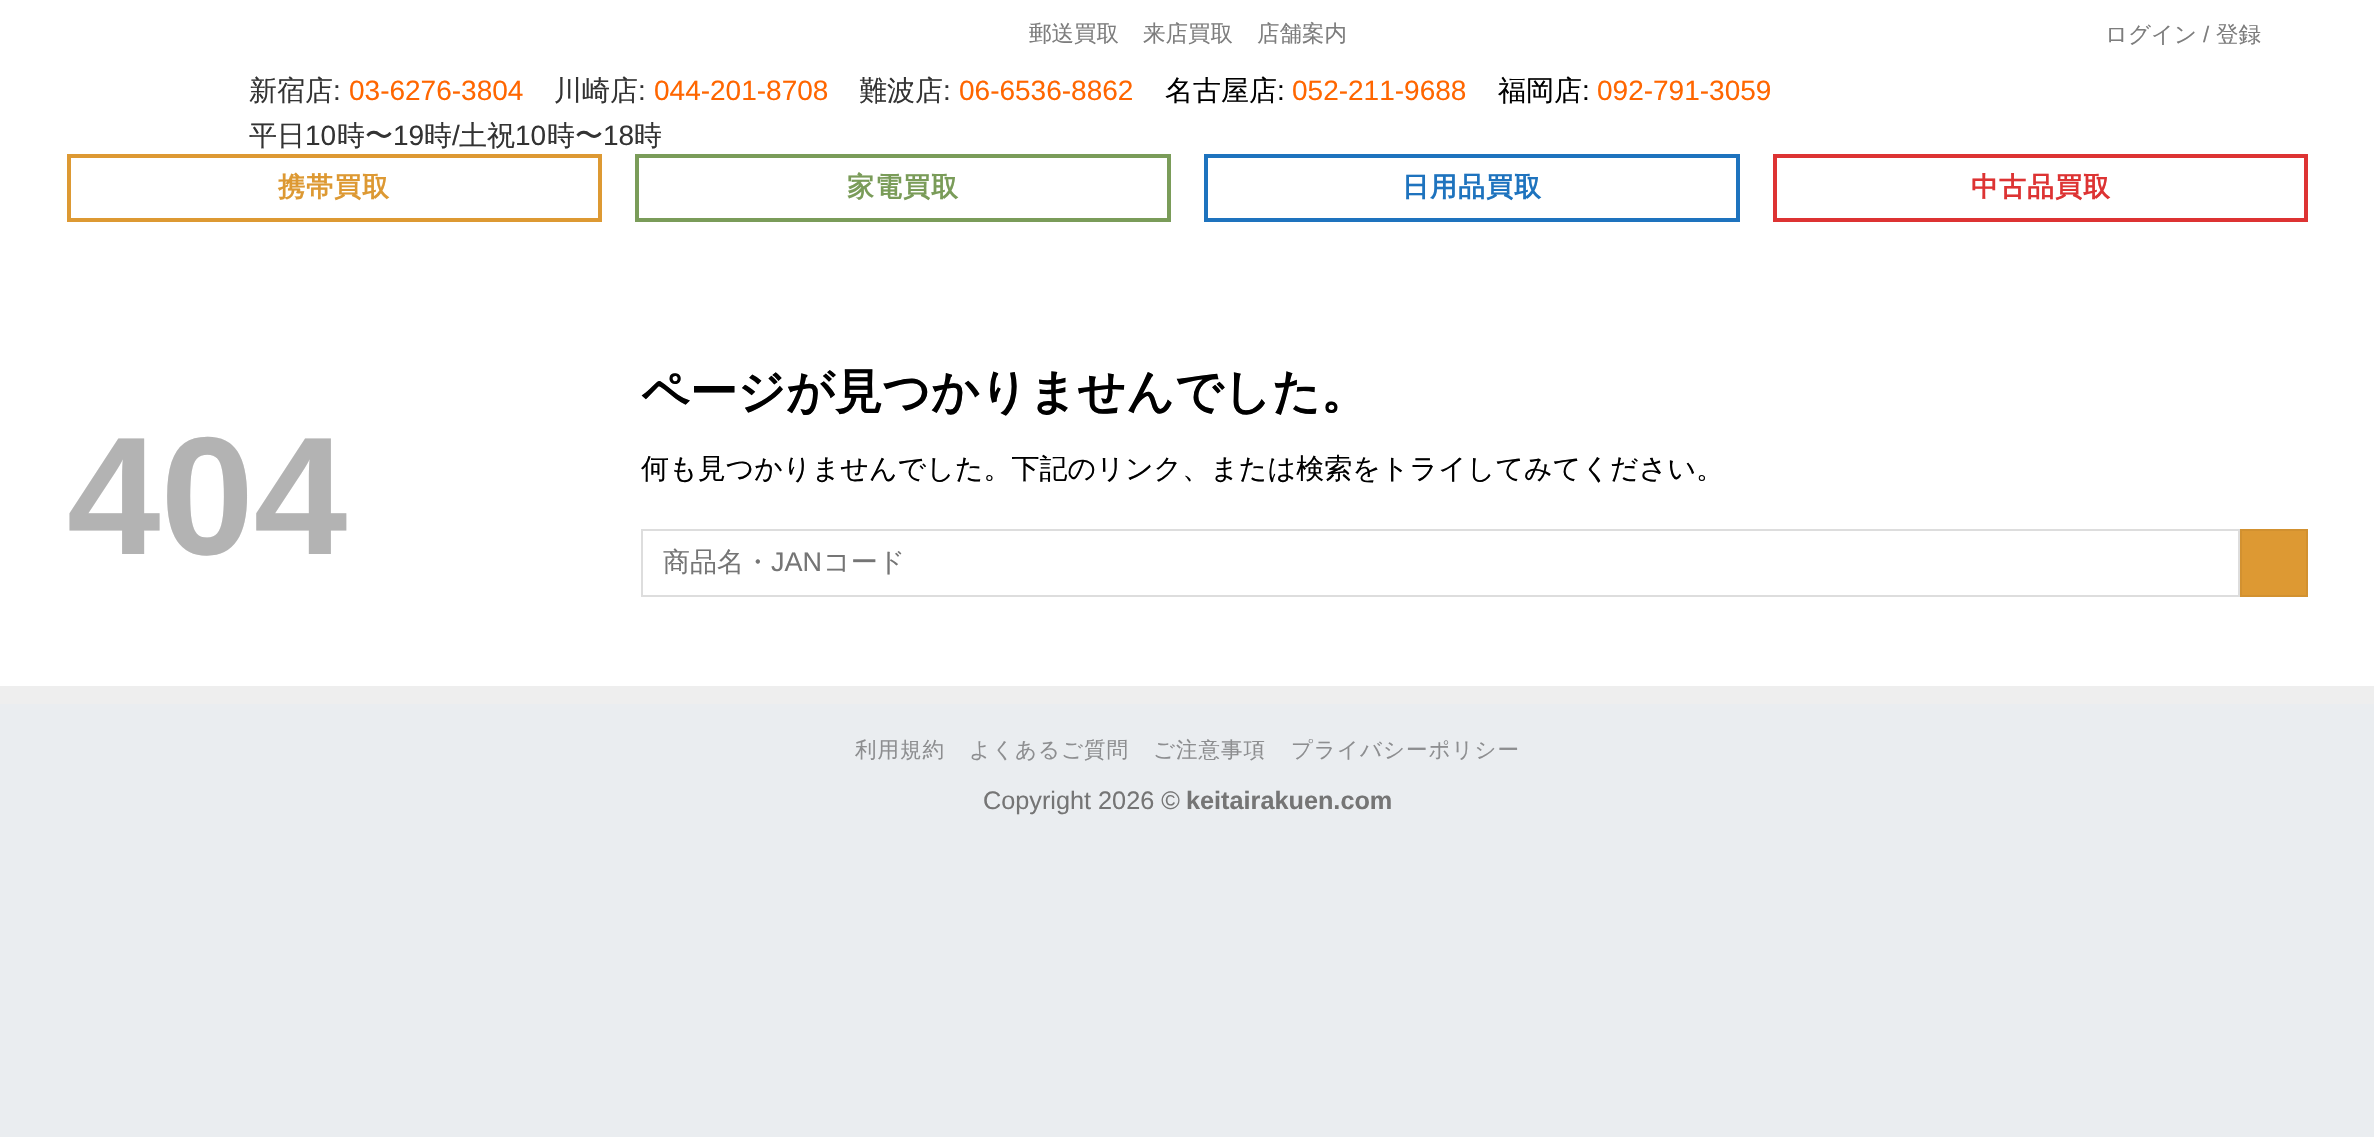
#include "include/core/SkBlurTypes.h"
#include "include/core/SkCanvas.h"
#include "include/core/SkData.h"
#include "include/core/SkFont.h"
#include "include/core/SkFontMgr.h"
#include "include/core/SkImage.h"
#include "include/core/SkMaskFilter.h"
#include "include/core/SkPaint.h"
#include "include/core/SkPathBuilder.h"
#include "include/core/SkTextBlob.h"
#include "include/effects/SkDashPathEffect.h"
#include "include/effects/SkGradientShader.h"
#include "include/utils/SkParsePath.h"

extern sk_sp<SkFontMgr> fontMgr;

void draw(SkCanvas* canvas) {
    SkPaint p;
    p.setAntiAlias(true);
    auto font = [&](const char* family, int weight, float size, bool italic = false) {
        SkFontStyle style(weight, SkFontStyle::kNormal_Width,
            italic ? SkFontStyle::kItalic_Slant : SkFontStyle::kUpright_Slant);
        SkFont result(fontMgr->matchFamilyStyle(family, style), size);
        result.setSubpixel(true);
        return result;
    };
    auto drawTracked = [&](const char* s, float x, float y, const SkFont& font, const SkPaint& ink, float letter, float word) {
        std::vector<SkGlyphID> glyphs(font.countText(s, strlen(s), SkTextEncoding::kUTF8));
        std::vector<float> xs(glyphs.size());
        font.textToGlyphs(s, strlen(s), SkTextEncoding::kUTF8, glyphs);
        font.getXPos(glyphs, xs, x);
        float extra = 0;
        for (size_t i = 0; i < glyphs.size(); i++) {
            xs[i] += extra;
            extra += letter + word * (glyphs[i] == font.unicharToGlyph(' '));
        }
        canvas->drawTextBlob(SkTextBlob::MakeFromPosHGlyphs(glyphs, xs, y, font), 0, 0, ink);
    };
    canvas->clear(0xFFEAEDF0);
    p.setColor(0xFFFFFFFF);
    canvas->drawRect(SkRect::MakeLTRB(0, 0, 2374, 686), p);
    auto font1 = font("WenQuanYi Zen Hei", 500, 22.5f);
    p.setColor(0xFF7D7D7D);
    {
        const struct { const char* s; float x, y; } items[] = {
            {"郵送買取", 1029, 41},
            {"来店買取", 1143, 41},
            {"店舗案内", 1257, 41},
            {"ログイン", 2105, 42},
        };
        for (auto [s, x, y] : items) {
            canvas->drawString(s, x, y, font1, p);
        }
    }
    auto font2 = font("Liberation Sans", 400, 22.5f);
    canvas->drawString("/", 2203, 42, font2, p);
    canvas->drawString("登録", 2216, 42, font1, p);
    auto font3 = font("WenQuanYi Zen Hei", 500, 28);
    p.setColor(0xFF333333);
    canvas->drawString("新宿店", 249, 100, font3, p);
    auto font4 = font("Liberation Sans", 400, 28);
    canvas->drawString(":", 333, 100, font4, p);
    p.setColor(0xFFFF6600);
    canvas->drawString("03-6276-3804", 349, 100, font4, p);
    p.setColor(0xFF333333);
    canvas->drawString("川崎店", 554, 100, font3, p);
    canvas->drawString(":", 638, 100, font4, p);
    p.setColor(0xFFFF6600);
    canvas->drawString("044-201-8708", 654, 100, font4, p);
    p.setColor(0xFF333333);
    canvas->drawString("難波店", 859, 100, font3, p);
    canvas->drawString(":", 943, 100, font4, p);
    p.setColor(0xFFFF6600);
    canvas->drawString("06-6536-8862", 959, 100, font4, p);
    p.setColor(0xFF000000);
    canvas->drawString("名古屋店", 1165, 100, font3, p);
    canvas->drawString(":", 1277, 100, font4, p);
    p.setColor(0xFFFF6600);
    canvas->drawString("052-211-9688", 1292, 100, font4, p);
    p.setColor(0xFF000000);
    canvas->drawString("福岡店", 1498, 100, font3, p);
    canvas->drawString(":", 1582, 100, font4, p);
    p.setColor(0xFFFF6600);
    canvas->drawString("092-791-3059", 1597, 100, font4, p);
    p.setColor(0xFF333333);
    canvas->drawString("平日", 249, 145, font3, p);
    canvas->drawString("10", 305, 145, font4, p);
    canvas->drawString("時〜", 337, 145, font3, p);
    canvas->drawString("19", 393, 145, font4, p);
    canvas->drawString("時", 424, 145, font3, p);
    canvas->drawString("/", 452, 145, font4, p);
    canvas->drawString("土祝", 459, 145, font3, p);
    canvas->drawString("10", 515, 145, font4, p);
    canvas->drawString("時〜", 547, 145, font3, p);
    canvas->drawString("18", 603, 145, font4, p);
    canvas->drawString("時", 634, 145, font3, p);
    p.setStyle(SkPaint::kStroke_Style);
    p.setStrokeWidth(4);
    p.setColor(0xFFDD9933);
    canvas->drawRect(SkRect::MakeLTRB(69, 156, 600, 220), p);
    auto font5 = font("WenQuanYi Zen Hei", 700, 27);
    p.setStyle(SkPaint::kFill_Style);
    drawTracked("携帯買取", 278, 196, font5, p, 1, 0);
    p.setStyle(SkPaint::kStroke_Style);
    p.setColor(0xFF7A9C59);
    canvas->drawRect(SkRect::MakeLTRB(637, 156, 1169, 220), p);
    p.setStyle(SkPaint::kFill_Style);
    drawTracked("家電買取", 847, 196, font5, p, 1, 0);
    p.setStyle(SkPaint::kStroke_Style);
    p.setColor(0xFF1E73BE);
    canvas->drawRect(SkRect::MakeLTRB(1206, 156, 1738, 220), p);
    p.setStyle(SkPaint::kFill_Style);
    drawTracked("日用品買取", 1402, 196, font5, p, 1, 0);
    p.setStyle(SkPaint::kStroke_Style);
    p.setColor(0xFFDD3333);
    canvas->drawRect(SkRect::MakeLTRB(1775, 156, 2306, 220), p);
    p.setStyle(SkPaint::kFill_Style);
    drawTracked("中古品買取", 1971, 196, font5, p, 1, 0);
    auto font6 = font("Liberation Sans", 700, 168);
    p.setColor(0xFFB3B3B3);
    canvas->drawString("404", 67, 554, font6, p);
    auto font7 = font("WenQuanYi Zen Hei", 700, 47.6f);
    p.setColor(0xFF000000);
    canvas->drawString("ページが見つかりませんでした。", 641, 408, font7, p);
    canvas->drawString("何も見つかりませんでした。下記のリンク、または検索をトライしてみてください。", 641, 478, font3, p);
    p.setStyle(SkPaint::kStroke_Style);
    p.setStrokeWidth(2);
    p.setColor(0xFFDDDDDD);
    canvas->drawRect(SkRect::MakeLTRB(642, 530, 2239, 596), p);
    auto font8 = font("WenQuanYi Zen Hei", 500, 27);
    p.setStyle(SkPaint::kFill_Style);
    p.setColor(0xFF757575);
    canvas->drawString("商品名・", 663, 571, font8, p);
    auto font9 = font("Liberation Sans", 400, 27);
    canvas->drawString("JAN", 771, 571, font9, p);
    canvas->drawString("コード", 823, 571, font8, p);
    p.setColor(0xFFDD9933);
    canvas->drawRect(SkRect::MakeLTRB(2241, 530, 2307, 596), p);
    p.setStyle(SkPaint::kStroke_Style);
    p.setColor(0xFFD29130);
    canvas->drawRect(SkRect::MakeLTRB(2241, 530, 2307, 596), p);
    p.setStyle(SkPaint::kFill_Style);
    p.setColor(0xFFEEEEEE);
    canvas->drawRect(SkRect::MakeLTRB(0, 686, 2374, 704), p);
    auto font10 = font("WenQuanYi Zen Hei", 500, 21.5f);
    p.setColor(0xFF8D8E90);
    {
        const struct { const char* s; float x, y; } items[] = {
            {"利用規約", 855, 757},
            {"よくあるご質問", 969, 757},
            {"ご注意事項", 1153, 757},
            {"プライバシーポリシー", 1291, 757},
        };
        for (auto [s, x, y] : items) {
            drawTracked(s, x, y, font10, p, 1, 0);
        }
    }
    auto font11 = font("Liberation Sans", 400, 25.25f);
    p.setColor(0xFF757575);
    canvas->drawString("Copyright 2026 ©", 983, 809, font11, p);
    auto font12 = font("Liberation Sans", 700, 25.25f);
    canvas->drawString("keitairakuen.com", 1186, 809, font12, p);
}
